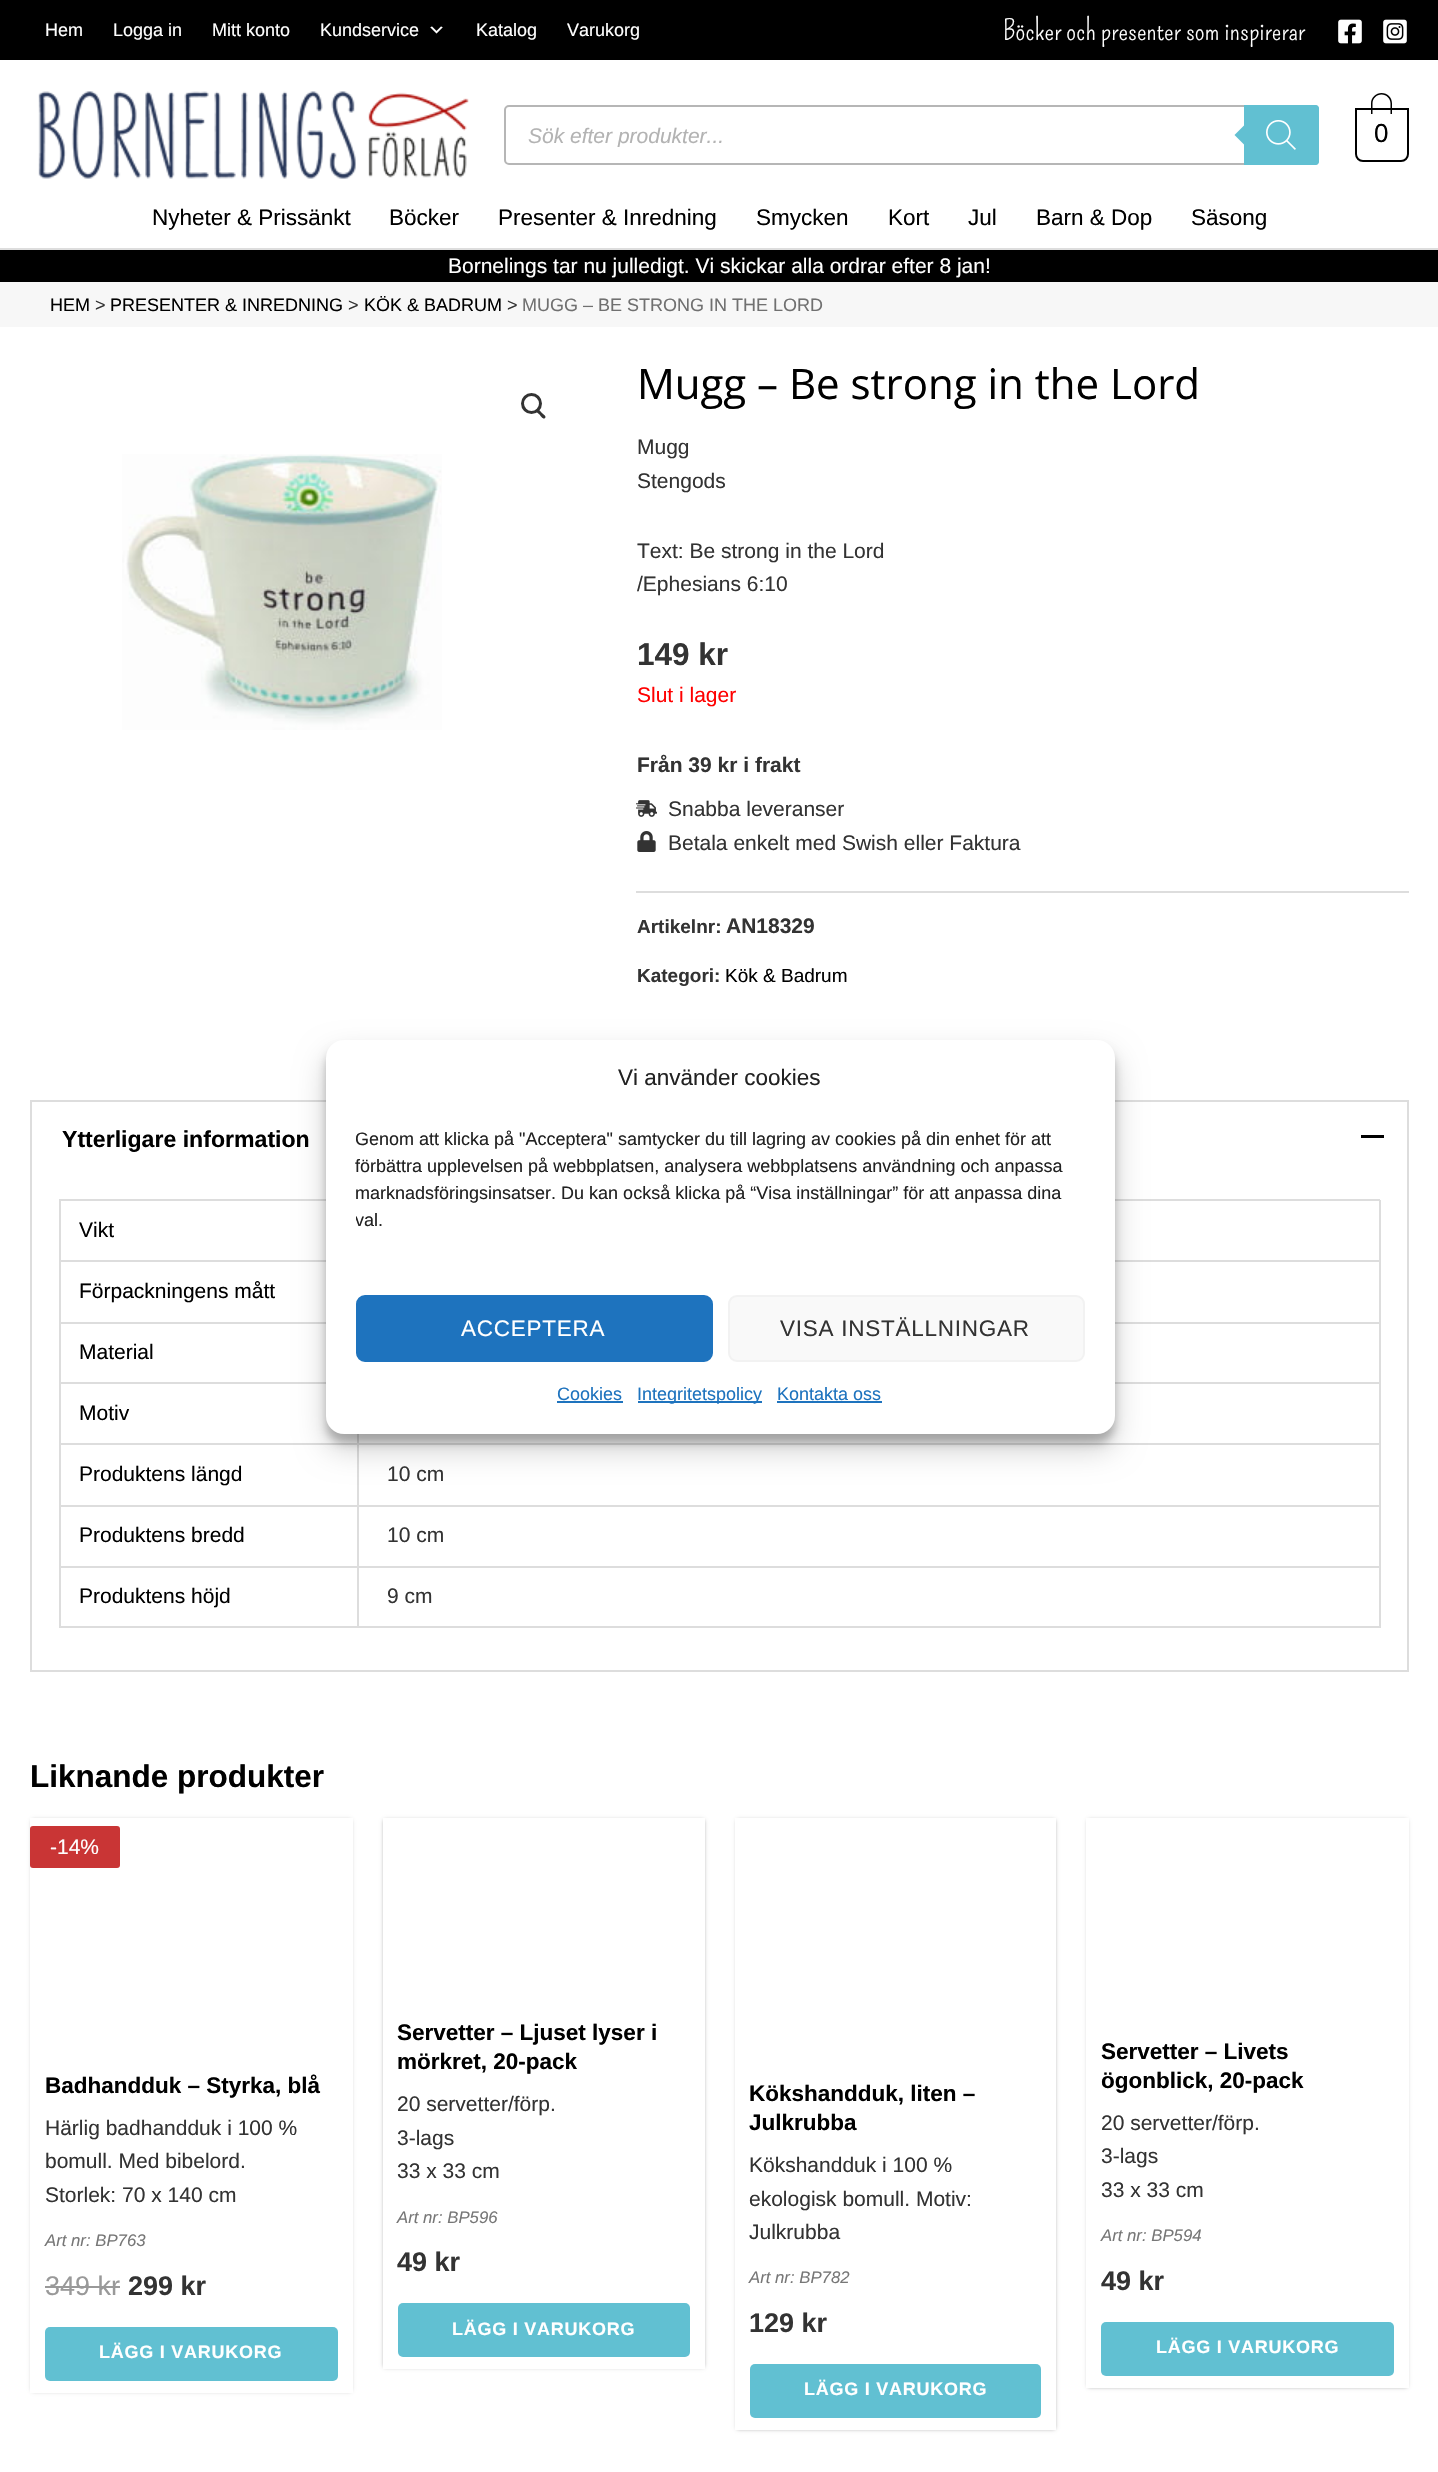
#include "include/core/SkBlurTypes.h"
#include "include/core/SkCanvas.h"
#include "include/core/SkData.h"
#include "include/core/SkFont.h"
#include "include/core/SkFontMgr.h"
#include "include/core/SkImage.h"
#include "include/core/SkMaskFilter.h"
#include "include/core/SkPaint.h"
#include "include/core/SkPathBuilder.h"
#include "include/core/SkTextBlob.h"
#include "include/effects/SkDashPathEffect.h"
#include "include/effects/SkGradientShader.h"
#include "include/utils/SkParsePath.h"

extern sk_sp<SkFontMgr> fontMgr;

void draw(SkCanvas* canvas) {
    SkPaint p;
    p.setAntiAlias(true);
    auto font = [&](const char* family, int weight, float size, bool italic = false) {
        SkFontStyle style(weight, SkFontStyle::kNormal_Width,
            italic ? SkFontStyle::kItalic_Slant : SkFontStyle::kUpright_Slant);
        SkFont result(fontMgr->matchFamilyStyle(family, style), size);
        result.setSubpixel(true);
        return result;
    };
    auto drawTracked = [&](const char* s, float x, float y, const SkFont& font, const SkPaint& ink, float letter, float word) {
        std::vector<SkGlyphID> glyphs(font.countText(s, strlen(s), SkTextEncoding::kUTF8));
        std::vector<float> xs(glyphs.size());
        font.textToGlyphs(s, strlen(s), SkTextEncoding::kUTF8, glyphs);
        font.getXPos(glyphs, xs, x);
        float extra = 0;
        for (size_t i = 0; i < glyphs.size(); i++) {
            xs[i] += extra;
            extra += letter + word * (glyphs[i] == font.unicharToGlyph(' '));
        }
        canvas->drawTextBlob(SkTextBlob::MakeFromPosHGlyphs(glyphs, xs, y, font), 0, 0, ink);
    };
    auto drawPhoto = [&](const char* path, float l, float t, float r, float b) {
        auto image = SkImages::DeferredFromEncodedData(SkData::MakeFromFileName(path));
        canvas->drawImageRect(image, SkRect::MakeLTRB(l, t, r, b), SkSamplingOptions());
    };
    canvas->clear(0xFFFFFFFF);
    p.setColor(0xFF000000);
    canvas->drawRect(SkRect::MakeLTRB(0, 0, 1438, 60), p);
    auto font1 = font("Liberation Sans", 400, 18);
    p.setColor(0xFFFFFFFF);
    {
        const struct { const char* s; float x, y; } items[] = {
            {"Hem", 45, 36},
            {"Logga in", 113, 36},
            {"Mitt konto", 212, 36},
            {"Kundservice", 320, 36},
        };
        for (auto [s, x, y] : items) {
            canvas->drawString(s, x, y, font1, p);
        }
    }
    drawPhoto("media/1.png", 430, 26, 443, 34);
    canvas->drawString("Katalog", 476, 36, font1, p);
    canvas->drawString("Varukorg", 567, 36, font1, p);
    auto font2 = font("Pompiere", 400, 28);
    canvas->drawString("Böcker och presenter som inspirerar", 1003, 40, font2, p);
    drawPhoto("media/2.png", 1338, 19, 1362, 44);
    drawPhoto("media/3.png", 1383, 19, 1407, 44);
    drawPhoto("media/4.png", 38, 91, 469, 179);
    p.setStyle(SkPaint::kStroke_Style);
    p.setStrokeWidth(2);
    p.setColor(0xFFB6B6B6);
    canvas->drawRoundRect(SkRect::MakeLTRB(505, 106, 1318, 164), 4, 4, p);
    canvas->save();
    canvas->clipRect(SkRect::MakeLTRB(528, 123, 1295, 147));
    auto font3 = font("Liberation Sans", 400, 21, true);
    p.setStyle(SkPaint::kFill_Style);
    p.setColor(0xFFB3B3B3);
    canvas->drawString("Sök efter produkter...", 528, 143, font3, p);
    canvas->restore();
    p.setColor(0xFF61C0D2);
    canvas->drawPath(SkPathBuilder().moveTo(1244, 105).lineTo(1316, 105).cubicTo(1317.5f, 105, 1319, 106.5f, 1319, 108).lineTo(1319, 162).cubicTo(1319, 163.5f, 1317.5f, 165, 1316, 165).lineTo(1244, 165).close().detach(), p);
    canvas->drawPath(SkPathBuilder().moveTo(1246.5f, 123).lineTo(1246.5f, 147).lineTo(1234.5f, 135).close().detach(), p);
    drawPhoto("media/5.png", 1266, 120, 1296, 150);
    p.setStyle(SkPaint::kStroke_Style);
    p.setColor(0xFF000000);
    canvas->drawPath(SkPathBuilder().moveTo(1356, 109).lineTo(1408, 109).lineTo(1408, 154).cubicTo(1408, 158, 1405, 161, 1401, 161).lineTo(1363, 161).cubicTo(1359, 161, 1356, 158, 1356, 154).close().detach(), p);
    p.setStyle(SkPaint::kFill_Style);
    canvas->drawPath(SkPathBuilder(SkPathFillType::kEvenOdd).moveTo(1381.5f, 93).cubicTo(1387.5f, 93, 1392, 97.5f, 1392, 103.5f).lineTo(1392, 114).lineTo(1371, 114).lineTo(1371, 103.5f).cubicTo(1371, 97.5f, 1376, 93, 1381.5f, 93).close().moveTo(1381.5f, 94.5f).cubicTo(1386.5f, 94.5f, 1390.5f, 98.5f, 1390.5f, 103.5f).lineTo(1390.5f, 114).lineTo(1372.5f, 114).lineTo(1372.5f, 103.5f).cubicTo(1372.5f, 98.5f, 1376.5f, 94.5f, 1381.5f, 94.5f).close().detach(), p);
    auto font4 = font("Liberation Sans", 400, 26);
    canvas->drawString("0", 1374, 142, font4, p);
    canvas->drawRect(SkRect::MakeLTRB(0, 250, 1438, 282), p);
    canvas->save();
    canvas->clipRect(SkRect::MakeLTRB(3, 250, 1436, 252));
    p.setColor(0x1A000000);
    p.setMaskFilter(SkMaskFilter::MakeBlur(kNormal_SkBlurStyle, 3));
    canvas->drawRect(SkRect::MakeLTRB(2, 191, 1437, 249), p);
    p.setMaskFilter(nullptr);
    canvas->restore();
    p.setColor(0xFFDDDDDD);
    canvas->drawRect(SkRect::MakeLTRB(0, 248, 1438, 250), p);
    auto font5 = font("Liberation Sans", 400, 22.5f);
    p.setColor(0xFF000000);
    {
        const struct { const char* s; float x, y; } items[] = {
            {"Nyheter & Prissänkt", 152, 225},
            {"Böcker", 389, 225},
            {"Presenter & Inredning", 498, 225},
            {"Smycken", 756, 225},
            {"Kort", 888, 225},
            {"Jul", 968, 225},
            {"Barn & Dop", 1036, 225},
            {"Säsong", 1191, 225},
        };
        for (auto [s, x, y] : items) {
            canvas->drawString(s, x, y, font5, p);
        }
    }
    auto font6 = font("Liberation Sans", 400, 21);
    p.setColor(0xFFFFFFFF);
    canvas->drawString("Bornelings tar nu julledigt. Vi skickar alla ordrar efter 8 jan!", 448, 273, font6, p);
    p.setColor(0xFFF7F7F7);
    canvas->drawRect(SkRect::MakeLTRB(0, 282, 1438, 327), p);
    p.setColor(0xFF000000);
    canvas->drawString("HEM", 50, 311, font1, p);
    p.setColor(0xFF333333);
    canvas->drawString(">", 95, 311, font1, p);
    p.setColor(0xFF000000);
    canvas->drawString("PRESENTER & INREDNING", 110, 311, font1, p);
    p.setColor(0xFF333333);
    canvas->drawString(">", 348, 311, font1, p);
    p.setColor(0xFF000000);
    canvas->drawString("KÖK & BADRUM", 364, 311, font1, p);
    p.setColor(0xFF333333);
    canvas->drawString(">", 507, 311, font1, p);
    p.setColor(0xFF707070);
    canvas->drawString("MUGG – BE STRONG IN THE LORD", 522, 311, font1, p);
    p.setStyle(SkPaint::kStroke_Style);
    p.setStrokeWidth(3);
    p.setColor(0xFF333333);
    canvas->drawCircle(531.5f, 403.5f, 9, p);
    p.setStyle(SkPaint::kFill_Style);
    canvas->drawPath(SkPathBuilder().moveTo(536.5f, 410).cubicTo(538.5f, 408, 541, 412, 542, 413).cubicTo(543, 414, 547, 416.5f, 545, 418).cubicTo(543.5f, 420, 540.5f, 416, 540, 415).cubicTo(539, 414, 535, 411.5f, 536.5f, 410).close().detach(), p);
    drawPhoto("media/6.png", 122, 454, 442, 730);
    auto font7 = font("Open Sans", 400, 42);
    p.setColor(0xFF000000);
    canvas->drawString("Mugg – Be strong in the Lord", 637, 399, font7, p);
    p.setColor(0xFF333333);
    {
        const struct { const char* s; float x, y; } items[] = {
            {"Mugg", 637, 454},
            {"Stengods", 637, 488},
            {"Text: Be strong in the Lord", 637, 558},
            {"/Ephesians 6:10", 637, 591},
        };
        for (auto [s, x, y] : items) {
            canvas->drawString(s, x, y, font6, p);
        }
    }
    auto font8 = font("Liberation Sans", 700, 31.5f);
    canvas->drawString("149 kr", 637, 665, font8, p);
    p.setColor(0xFFFF0000);
    canvas->drawString("Slut i lager", 637, 702, font6, p);
    auto font9 = font("Liberation Sans", 700, 21);
    p.setColor(0xFF333333);
    canvas->drawString("Från 39 kr i frakt", 637, 772, font9, p);
    drawPhoto("media/7.png", 636, 800, 657, 817);
    canvas->drawString("Snabba leveranser", 668, 816, font6, p);
    drawPhoto("media/8.png", 637, 831, 656, 852);
    canvas->drawString("Betala enkelt med Swish eller Faktura", 668, 850, font6, p);
    p.setColor(0xFFDDDDDD);
    canvas->drawRect(SkRect::MakeLTRB(636, 891, 1409, 893), p);
    auto font10 = font("Liberation Sans", 700, 19);
    p.setColor(0xFF333333);
    canvas->drawString("Artikelnr:", 637, 933, font10, p);
    canvas->drawString("AN18329", 726, 933, font9, p);
    canvas->drawString("Kategori:", 637, 982, font10, p);
    auto font11 = font("Liberation Sans", 400, 19);
    p.setColor(0xFF000000);
    canvas->drawString("Kök & Badrum", 725, 982, font11, p);
    {
        const struct { float l, t, r, b; SkColor color; } items[] = {
            {30, 1670, 1409, 1672, 0xFFDDDDDD},
            {30, 1100, 1409, 1102, 0xFFDDDDDD},
            {1407, 1100, 1409, 1178, 0xFFDDDDDD},
            {30, 1100, 32, 1178, 0xFFDDDDDD},
        };
        for (auto [l, t, r, b, color] : items) {
            p.setColor(color);
            canvas->drawRect(SkRect::MakeLTRB(l, t, r, b), p);
        }
    }
    auto font12 = font("Liberation Sans", 700, 23.1f);
    p.setColor(0xFF000000);
    canvas->drawString("Ytterligare information", 62, 1147, font12, p);
    {
        const struct { float l, t, r, b; SkColor color; } items[] = {
            {1361, 1135, 1384, 1138, 0xFF000000},
            {1407, 1178, 1409, 1670, 0xFFDDDDDD},
            {30, 1178, 32, 1670, 0xFFDDDDDD},
            {59, 1199, 1380, 1201, 0xFFDDDDDD},
            {59, 1260, 326, 1262, 0xFFDDDDDD},
            {59, 1200, 61, 1262, 0xFFDDDDDD},
        };
        for (auto [l, t, r, b, color] : items) {
            p.setColor(color);
            canvas->drawRect(SkRect::MakeLTRB(l, t, r, b), p);
        }
    }
    p.setColor(0xFF000000);
    canvas->drawString("Vikt", 79, 1237, font6, p);
    {
        const struct { float l, t, r, b; SkColor color; } items[] = {
            {1379, 1200, 1381, 1323, 0xFFDDDDDD},
            {1115, 1260, 1380, 1262, 0xFFDDDDDD},
            {59, 1322, 326, 1324, 0xFFDDDDDD},
            {59, 1262, 61, 1323, 0xFFDDDDDD},
        };
        for (auto [l, t, r, b, color] : items) {
            p.setColor(color);
            canvas->drawRect(SkRect::MakeLTRB(l, t, r, b), p);
        }
    }
    p.setColor(0xFF000000);
    canvas->drawString("Förpackningens mått", 79, 1298, font6, p);
    {
        const struct { float l, t, r, b; SkColor color; } items[] = {
            {1115, 1322, 1380, 1324, 0xFFDDDDDD},
            {59, 1382, 326, 1384, 0xFFDDDDDD},
            {59, 1323, 61, 1383, 0xFFDDDDDD},
        };
        for (auto [l, t, r, b, color] : items) {
            p.setColor(color);
            canvas->drawRect(SkRect::MakeLTRB(l, t, r, b), p);
        }
    }
    p.setColor(0xFF000000);
    canvas->drawString("Material", 79, 1359, font6, p);
    {
        const struct { float l, t, r, b; SkColor color; } items[] = {
            {1379, 1323, 1381, 1383, 0xFFDDDDDD},
            {1115, 1382, 1380, 1384, 0xFFDDDDDD},
            {357, 1434, 359, 1506, 0xFFDDDDDD},
            {59, 1443, 359, 1445, 0xFFDDDDDD},
            {59, 1383, 61, 1445, 0xFFDDDDDD},
        };
        for (auto [l, t, r, b, color] : items) {
            p.setColor(color);
            canvas->drawRect(SkRect::MakeLTRB(l, t, r, b), p);
        }
    }
    p.setColor(0xFF000000);
    canvas->drawString("Motiv", 79, 1420, font6, p);
    {
        const struct { float l, t, r, b; SkColor color; } items[] = {
            {1379, 1383, 1381, 1506, 0xFFDDDDDD},
            {359, 1443, 1380, 1445, 0xFFDDDDDD},
            {59, 1505, 1380, 1507, 0xFFDDDDDD},
            {59, 1445, 61, 1506, 0xFFDDDDDD},
        };
        for (auto [l, t, r, b, color] : items) {
            p.setColor(color);
            canvas->drawRect(SkRect::MakeLTRB(l, t, r, b), p);
        }
    }
    p.setColor(0xFF000000);
    canvas->drawString("Produktens längd", 79, 1481, font6, p);
    p.setColor(0xFF333333);
    canvas->drawString("10 cm", 387, 1481, font6, p);
    {
        const struct { float l, t, r, b; SkColor color; } items[] = {
            {357, 1506, 359, 1628, 0xFFDDDDDD},
            {59, 1566, 359, 1568, 0xFFDDDDDD},
            {59, 1506, 61, 1568, 0xFFDDDDDD},
        };
        for (auto [l, t, r, b, color] : items) {
            p.setColor(color);
            canvas->drawRect(SkRect::MakeLTRB(l, t, r, b), p);
        }
    }
    p.setColor(0xFF000000);
    canvas->drawString("Produktens bredd", 79, 1542, font6, p);
    p.setColor(0xFFDDDDDD);
    canvas->drawRect(SkRect::MakeLTRB(1379, 1506, 1381, 1628), p);
    canvas->drawRect(SkRect::MakeLTRB(359, 1566, 1380, 1568), p);
    p.setColor(0xFF333333);
    canvas->drawString("10 cm", 387, 1542, font6, p);
    p.setColor(0xFFDDDDDD);
    canvas->drawRect(SkRect::MakeLTRB(59, 1626, 1380, 1628), p);
    canvas->drawRect(SkRect::MakeLTRB(59, 1568, 61, 1628), p);
    p.setColor(0xFF000000);
    canvas->drawString("Produktens höjd", 79, 1603, font6, p);
    p.setColor(0xFF333333);
    canvas->drawString("9 cm", 387, 1603, font6, p);
    p.setColor(0xFF000000);
    canvas->drawString("Liknande produkter", 30, 1787, font8, p);
    p.setColor(0xFF999999);
    p.setMaskFilter(SkMaskFilter::MakeBlur(kNormal_SkBlurStyle, 2));
    canvas->drawRect(SkRect::MakeLTRB(32, 1820, 351, 2391), p);
    p.setMaskFilter(nullptr);
    p.setColor(0xFFFFFFFF);
    canvas->drawRect(SkRect::MakeLTRB(30, 1818, 353, 2393), p);
    p.setColor(0xFFC93535);
    canvas->drawRoundRect(SkRect::MakeLTRB(30, 1826, 120, 1868), 3, 3, p);
    p.setColor(0xFFFFFFFF);
    canvas->drawString("-14%", 50, 1854, font6, p);
    auto font13 = font("Liberation Sans", 700, 22.5f);
    p.setColor(0xFF000000);
    canvas->drawString("Badhandduk – Styrka, blå", 45, 2093, font13, p);
    p.setColor(0xFF333333);
    {
        const struct { const char* s; float x, y; } items[] = {
            {"Härlig badhandduk i 100 %", 45, 2135},
            {"bomull. Med bibelord.", 45, 2168},
            {"Storlek: 70 x 140 cm", 45, 2202},
        };
        for (auto [s, x, y] : items) {
            canvas->drawString(s, x, y, font6, p);
        }
    }
    auto font14 = font("Liberation Sans", 400, 16.75f, true);
    p.setColor(0xFF777777);
    canvas->drawString("Art nr: BP763", 45, 2246, font14, p);
    auto font15 = font("Liberation Sans", 400, 27);
    p.setColor(0xFF999999);
    canvas->drawString("349 kr", 45, 2295, font15, p);
    canvas->drawRect(SkRect::MakeLTRB(45, 2286, 120, 2288), p);
    auto font16 = font("Liberation Sans", 700, 27);
    p.setColor(0xFF333333);
    canvas->drawString("299 kr", 128, 2295, font16, p);
    p.setColor(0xFF61C0D2);
    canvas->drawRoundRect(SkRect::MakeLTRB(45, 2327, 338, 2381), 5, 5, p);
    auto font17 = font("Liberation Sans", 700, 18);
    p.setColor(0xFFFFFFFF);
    drawTracked("LÄGG I VARUKORG", 99, 2358, font17, p, 0.75f, 0);
    p.setColor(0xFF999999);
    p.setMaskFilter(SkMaskFilter::MakeBlur(kNormal_SkBlurStyle, 2));
    canvas->drawRect(SkRect::MakeLTRB(384, 1820, 704, 2367), p);
    p.setMaskFilter(nullptr);
    p.setColor(0xFFFFFFFF);
    canvas->drawRect(SkRect::MakeLTRB(383, 1818, 705, 2369), p);
    p.setColor(0xFF000000);
    canvas->drawString("Servetter – Ljuset lyser i", 397, 2040, font13, p);
    canvas->drawString("mörkret, 20-pack", 397, 2069, font13, p);
    p.setColor(0xFF333333);
    {
        const struct { const char* s; float x, y; } items[] = {
            {"20 servetter/förp.", 397, 2111},
            {"3-lags", 397, 2145},
            {"33 x 33 cm", 397, 2178},
        };
        for (auto [s, x, y] : items) {
            canvas->drawString(s, x, y, font6, p);
        }
    }
    p.setColor(0xFF777777);
    canvas->drawString("Art nr: BP596", 397, 2223, font14, p);
    p.setColor(0xFF333333);
    canvas->drawString("49 kr", 397, 2271, font16, p);
    p.setColor(0xFF61C0D2);
    canvas->drawRoundRect(SkRect::MakeLTRB(398, 2303, 690, 2357), 5, 5, p);
    p.setColor(0xFFFFFFFF);
    drawTracked("LÄGG I VARUKORG", 452, 2335, font17, p, 0.75f, 0);
    canvas->save();
    canvas->clipPath(SkPathBuilder(SkPathFillType::kEvenOdd).moveTo(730, 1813).lineTo(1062, 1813).lineTo(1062, 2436).lineTo(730, 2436).close().moveTo(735, 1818).lineTo(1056, 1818).lineTo(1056, 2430).lineTo(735, 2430).close().detach(), true);
    p.setColor(0xFF999999);
    p.setMaskFilter(SkMaskFilter::MakeBlur(kNormal_SkBlurStyle, 2));
    canvas->drawRect(SkRect::MakeLTRB(737, 1820, 1055, 2429), p);
    p.setMaskFilter(nullptr);
    canvas->restore();
    p.setColor(0xFF000000);
    canvas->drawString("Kökshandduk, liten –", 749, 2101, font13, p);
    canvas->drawString("Julkrubba", 749, 2130, font13, p);
    p.setColor(0xFF333333);
    {
        const struct { const char* s; float x, y; } items[] = {
            {"Kökshandduk i 100 %", 749, 2172},
            {"ekologisk bomull. Motiv:", 749, 2206},
            {"Julkrubba", 749, 2239},
        };
        for (auto [s, x, y] : items) {
            canvas->drawString(s, x, y, font6, p);
        }
    }
    p.setColor(0xFF777777);
    canvas->drawString("Art nr: BP782", 749, 2283, font14, p);
    p.setColor(0xFF333333);
    canvas->drawString("129 kr", 749, 2332, font16, p);
    p.setColor(0xFF61C0D2);
    canvas->drawRoundRect(SkRect::MakeLTRB(750, 2364, 1041, 2418), 5, 5, p);
    p.setColor(0xFFFFFFFF);
    drawTracked("LÄGG I VARUKORG", 804, 2395, font17, p, 0.75f, 0);
    p.setColor(0xFF999999);
    p.setMaskFilter(SkMaskFilter::MakeBlur(kNormal_SkBlurStyle, 2));
    canvas->drawRect(SkRect::MakeLTRB(1088, 1820, 1407, 2387), p);
    p.setMaskFilter(nullptr);
    p.setColor(0xFFFFFFFF);
    canvas->drawRect(SkRect::MakeLTRB(1086, 1818, 1409, 2388), p);
    p.setColor(0xFF000000);
    canvas->drawString("Servetter – Livets", 1101, 2059, font13, p);
    canvas->drawString("ögonblick, 20-pack", 1101, 2088, font13, p);
    p.setColor(0xFF333333);
    {
        const struct { const char* s; float x, y; } items[] = {
            {"20 servetter/förp.", 1101, 2130},
            {"3-lags", 1101, 2163},
            {"33 x 33 cm", 1101, 2197},
        };
        for (auto [s, x, y] : items) {
            canvas->drawString(s, x, y, font6, p);
        }
    }
    p.setColor(0xFF777777);
    canvas->drawString("Art nr: BP594", 1101, 2241, font14, p);
    p.setColor(0xFF333333);
    canvas->drawString("49 kr", 1101, 2290, font16, p);
    p.setColor(0xFF61C0D2);
    canvas->drawRoundRect(SkRect::MakeLTRB(1101, 2322, 1394, 2376), 5, 5, p);
    p.setColor(0xFFFFFFFF);
    drawTracked("LÄGG I VARUKORG", 1156, 2353, font17, p, 0.75f, 0);
    p.setColor(0x3B000000);
    p.setMaskFilter(SkMaskFilter::MakeBlur(kNormal_SkBlurStyle, 4.5f));
    canvas->drawRoundRect(SkRect::MakeLTRB(326, 1049, 1115, 1443), 18, 18, p);
    p.setMaskFilter(nullptr);
    p.setColor(0x30000000);
    p.setMaskFilter(SkMaskFilter::MakeBlur(kNormal_SkBlurStyle, 15));
    canvas->drawRoundRect(SkRect::MakeLTRB(326, 1055, 1115, 1449), 18, 18, p);
    p.setMaskFilter(nullptr);
    p.setColor(0xFFFFFFFF);
    canvas->drawRoundRect(SkRect::MakeLTRB(326, 1040, 1115, 1434), 18, 18, p);
    p.setColor(0xFF222222);
    canvas->drawString("Vi använder cookies", 618, 1085, font5, p);
    canvas->save();
    canvas->clipRect(SkRect::MakeLTRB(356, 1125, 1085, 1265));
    canvas->drawString("Genom att klicka på \"Acceptera\" samtycker du till lagring av cookies på din enhet för att", 355, 1145, font1, p);
    canvas->restore();
    canvas->drawString("förbättra upplevelsen på webbplatsen, analysera webbplatsens användning och anpassa", 355, 1172, font1, p);
    canvas->drawString("marknadsföringsinsatser. Du kan också klicka på “Visa inställningar” för att anpassa dina", 355, 1199, font1, p);
    canvas->save();
    canvas->clipRect(SkRect::MakeLTRB(356, 1125, 1085, 1265));
    canvas->drawString("val.", 355, 1226, font1, p);
    canvas->restore();
    p.setColor(0xFF1E73BE);
    canvas->drawRoundRect(SkRect::MakeLTRB(357, 1296, 712, 1361), 8, 8, p);
    p.setStyle(SkPaint::kStroke_Style);
    p.setStrokeWidth(2);
    canvas->drawRoundRect(SkRect::MakeLTRB(357, 1296, 712, 1361), 8, 8, p);
    p.setStyle(SkPaint::kFill_Style);
    p.setColor(0xFFFFFFFF);
    drawTracked("ACCEPTERA", 461, 1336, font5, p, 0.75f, 0);
    p.setColor(0xFFF9F9F9);
    canvas->drawRoundRect(SkRect::MakeLTRB(729, 1296, 1084, 1361), 8, 8, p);
    p.setStyle(SkPaint::kStroke_Style);
    p.setColor(0xFFF2F2F2);
    canvas->drawRoundRect(SkRect::MakeLTRB(729, 1296, 1084, 1361), 8, 8, p);
    p.setStyle(SkPaint::kFill_Style);
    p.setColor(0xFF333333);
    drawTracked("VISA INSTÄLLNINGAR", 780, 1336, font5, p, 0.75f, 0);
    p.setColor(0xFF1E73BE);
    canvas->drawString("Cookies", 557, 1400, font1, p);
    canvas->drawRect(SkRect::MakeLTRB(557, 1401, 623, 1403), p);
    canvas->drawRect(SkRect::MakeLTRB(638, 1401, 762, 1403), p);
    canvas->drawString("Integritetspolicy", 637, 1400, font1, p);
    canvas->drawString("Kontakta oss", 777, 1400, font1, p);
    canvas->drawRect(SkRect::MakeLTRB(777, 1401, 882, 1403), p);
}
